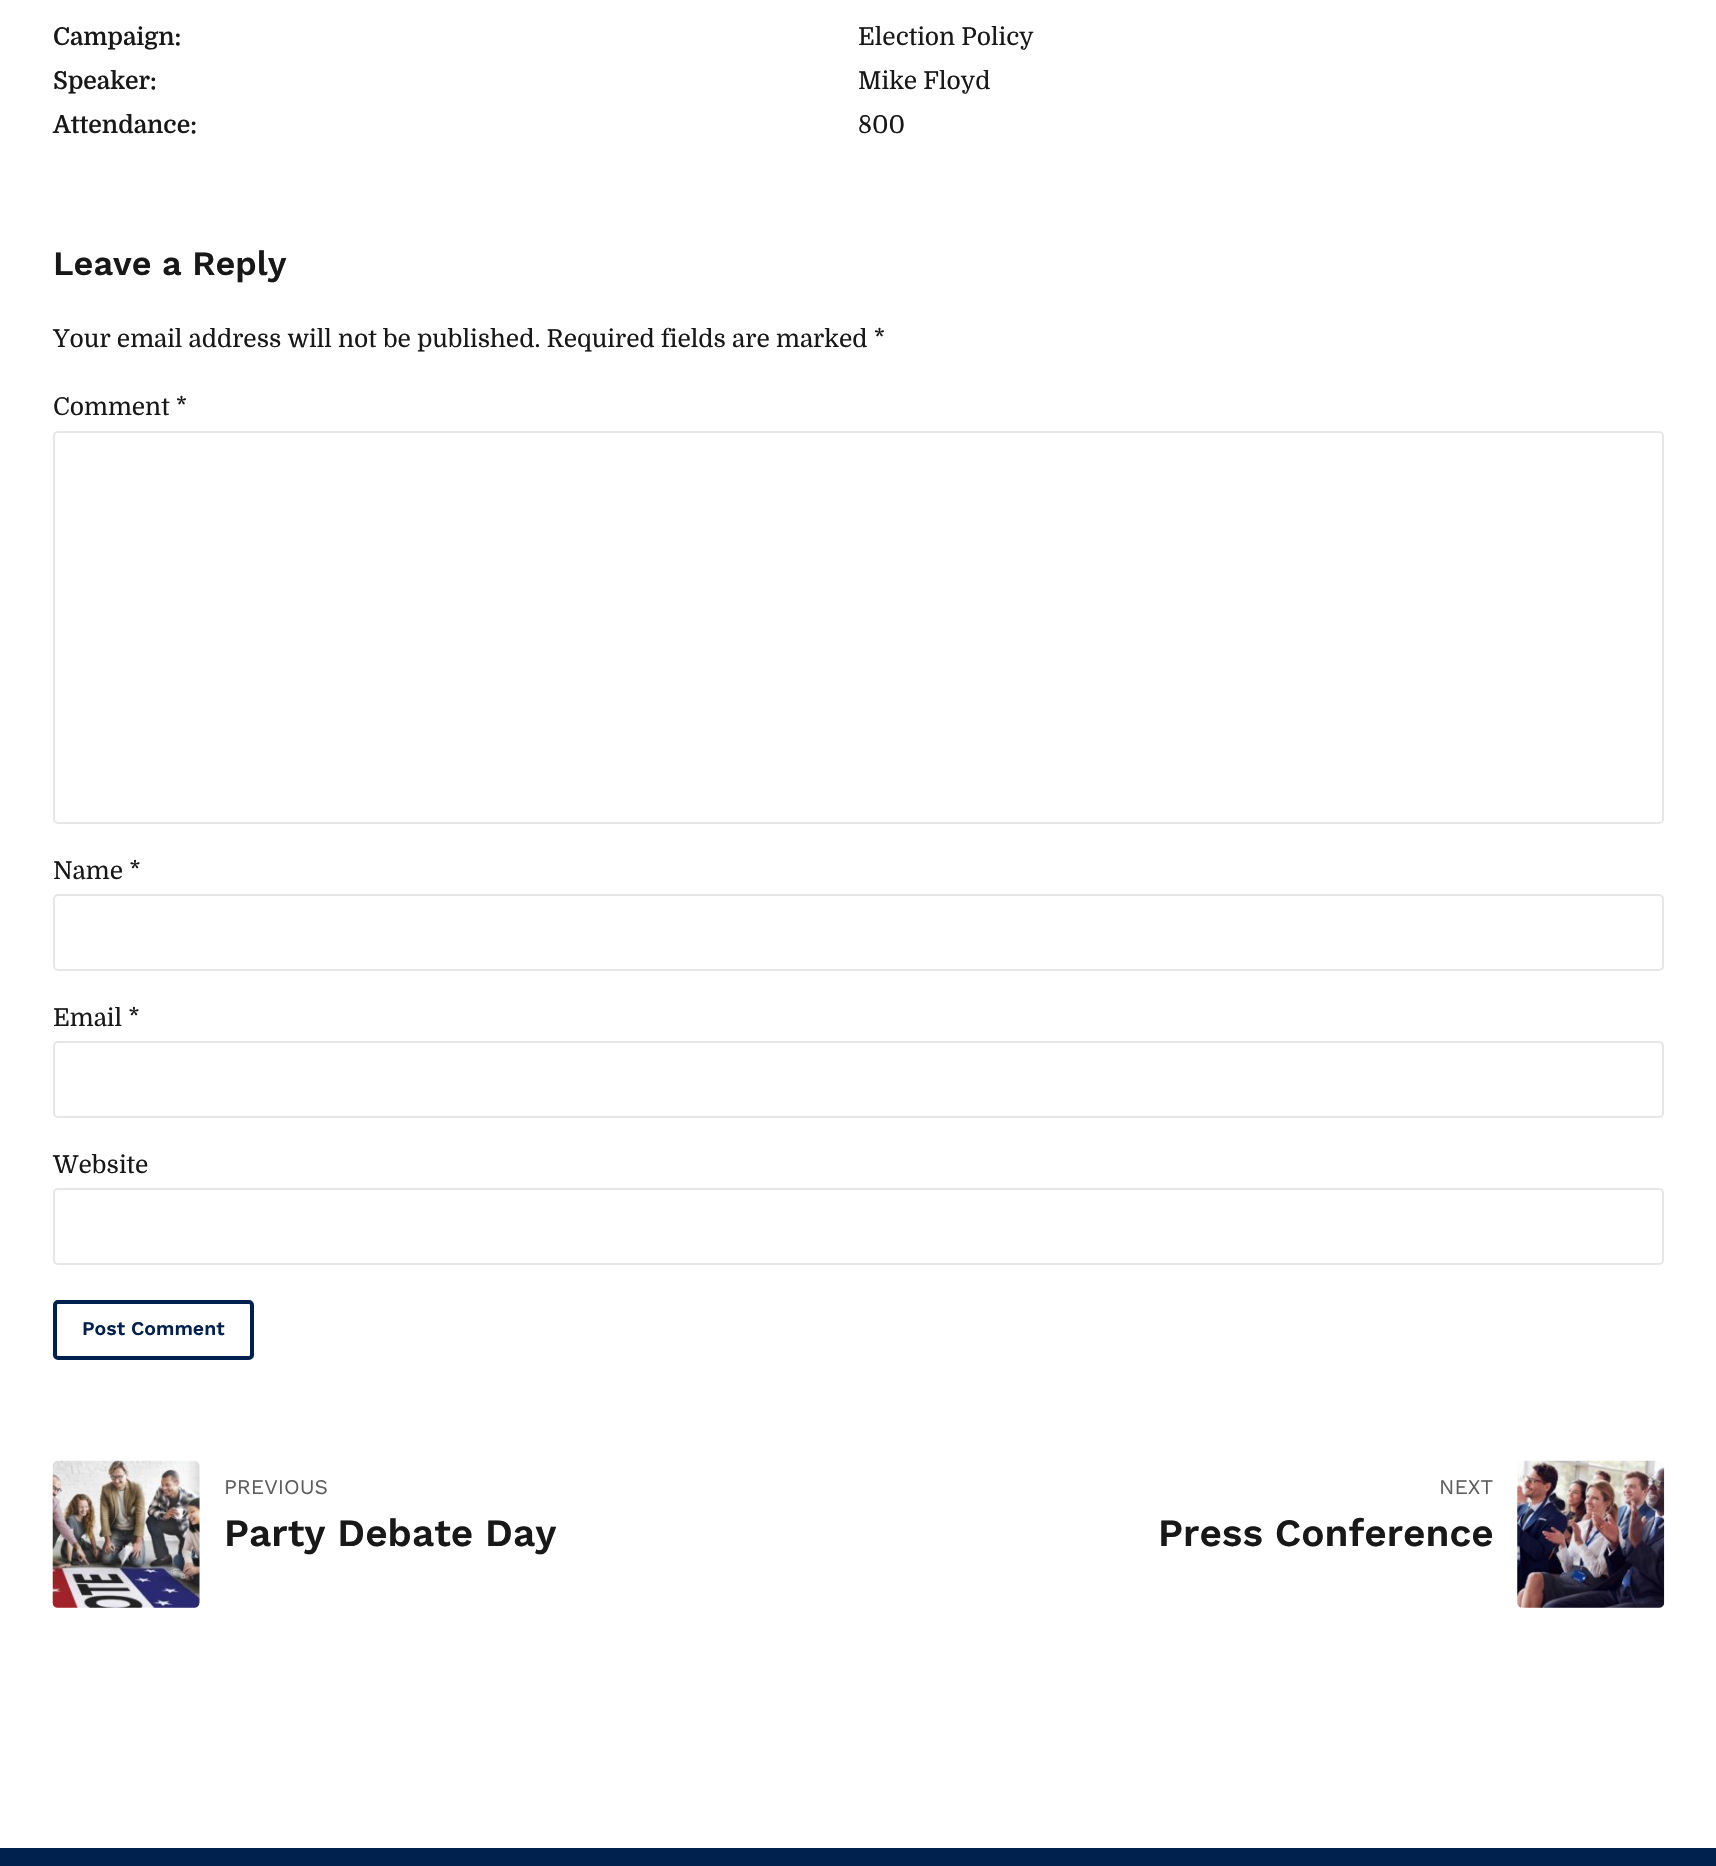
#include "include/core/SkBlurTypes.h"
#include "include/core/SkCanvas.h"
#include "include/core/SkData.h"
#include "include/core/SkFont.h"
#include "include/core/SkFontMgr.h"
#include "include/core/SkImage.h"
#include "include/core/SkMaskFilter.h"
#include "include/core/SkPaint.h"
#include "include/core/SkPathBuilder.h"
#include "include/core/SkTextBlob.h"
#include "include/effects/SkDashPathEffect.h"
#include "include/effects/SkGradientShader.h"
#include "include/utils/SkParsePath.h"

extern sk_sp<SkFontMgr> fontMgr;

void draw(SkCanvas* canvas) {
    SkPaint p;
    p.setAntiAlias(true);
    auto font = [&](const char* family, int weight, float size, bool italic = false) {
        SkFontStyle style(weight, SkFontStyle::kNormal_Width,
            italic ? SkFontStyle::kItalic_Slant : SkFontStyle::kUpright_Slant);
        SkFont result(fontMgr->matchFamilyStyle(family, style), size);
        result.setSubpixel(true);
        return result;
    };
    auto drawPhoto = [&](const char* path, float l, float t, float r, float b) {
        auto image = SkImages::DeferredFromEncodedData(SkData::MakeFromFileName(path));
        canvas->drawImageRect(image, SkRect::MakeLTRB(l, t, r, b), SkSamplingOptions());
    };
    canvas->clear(0xFFFFFFFF);
    auto font1 = font("Domine", 600, 24.5f);
    p.setColor(0xFF181818);
    canvas->drawString("Campaign:", 53, 45, font1, p);
    auto font2 = font("Domine", 400, 24.5f);
    canvas->drawString("Election Policy", 858, 45, font2, p);
    canvas->drawString("Speaker:", 53, 89, font1, p);
    canvas->drawString("Mike Floyd", 858, 89, font2, p);
    canvas->drawString("Attendance:", 53, 133, font1, p);
    canvas->drawString("800", 858, 133, font2, p);
    auto font3 = font("Work Sans", 600, 34.25f);
    canvas->drawString("Leave a Reply", 53, 275, font3, p);
    canvas->drawString("Your email address will not be published. Required fields are marked *", 53, 347, font2, p);
    canvas->drawString("Comment *", 53, 415, font2, p);
    p.setStyle(SkPaint::kStroke_Style);
    p.setStrokeWidth(2);
    p.setColor(0xFFE6E6E6);
    canvas->drawRoundRect(SkRect::MakeLTRB(54, 432, 1663, 823), 4, 4, p);
    p.setStyle(SkPaint::kFill_Style);
    p.setColor(0xFF181818);
    canvas->drawString("Name *", 53, 879, font2, p);
    p.setStyle(SkPaint::kStroke_Style);
    p.setColor(0xFFE6E6E6);
    canvas->drawRoundRect(SkRect::MakeLTRB(54, 895, 1663, 970), 4, 4, p);
    p.setStyle(SkPaint::kFill_Style);
    p.setColor(0xFF181818);
    canvas->drawString("Email *", 53, 1026, font2, p);
    p.setStyle(SkPaint::kStroke_Style);
    p.setColor(0xFFE6E6E6);
    canvas->drawRoundRect(SkRect::MakeLTRB(54, 1042, 1663, 1117), 4, 4, p);
    p.setStyle(SkPaint::kFill_Style);
    p.setColor(0xFF181818);
    canvas->drawString("Website", 53, 1173, font2, p);
    p.setStyle(SkPaint::kStroke_Style);
    p.setColor(0xFFE6E6E6);
    canvas->drawRoundRect(SkRect::MakeLTRB(54, 1189, 1663, 1264), 4, 4, p);
    p.setStrokeWidth(4);
    p.setColor(0xFF00214E);
    canvas->drawRoundRect(SkRect::MakeLTRB(55, 1302, 252, 1358), 3, 3, p);
    auto font4 = font("Work Sans", 600, 19.5f);
    p.setStyle(SkPaint::kFill_Style);
    canvas->drawString("Post Comment", 82, 1335, font4, p);
    drawPhoto("media/1.png", 52, 1460, 200, 1608);
    auto font5 = font("Work Sans", 400, 21);
    p.setColor(0xFF5D5D5D);
    canvas->drawString("PREVIOUS", 224, 1494, font5, p);
    auto font6 = font("Work Sans", 600, 38.75f);
    p.setColor(0xFF181818);
    canvas->drawString("Party Debate Day", 224, 1546, font6, p);
    p.setColor(0xFF5D5D5D);
    canvas->drawString("NEXT", 1439, 1494, font5, p);
    p.setColor(0xFF181818);
    canvas->drawString("Press Conference", 1158, 1546, font6, p);
    drawPhoto("media/2.png", 1517, 1460, 1665, 1608);
    p.setColor(0xFF00214E);
    canvas->drawRect(SkRect::MakeLTRB(0, 1848, 1716, 1866), p);
}
